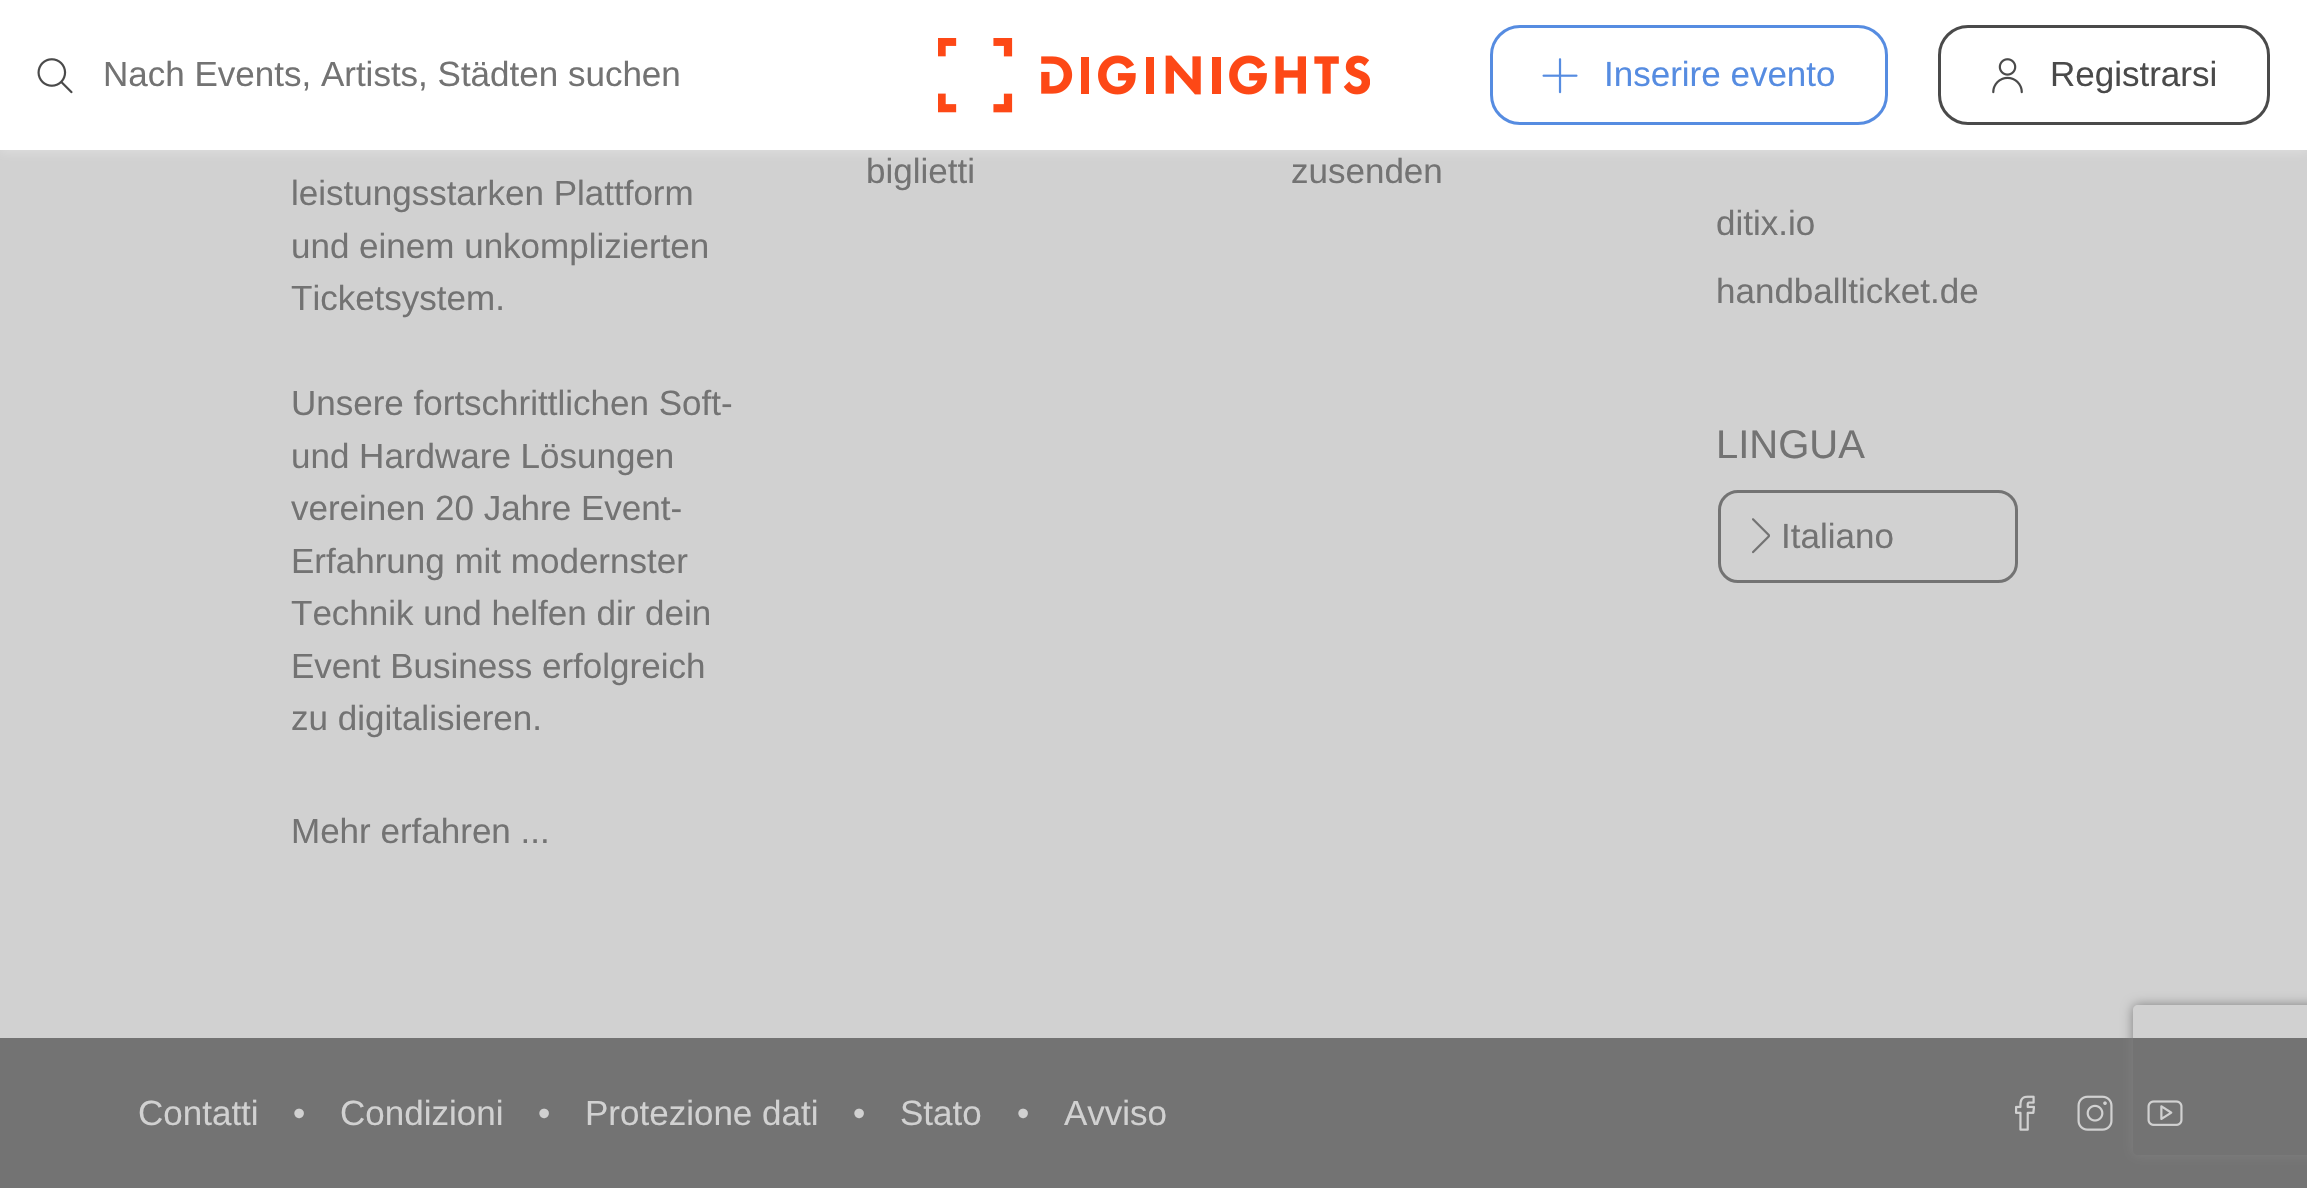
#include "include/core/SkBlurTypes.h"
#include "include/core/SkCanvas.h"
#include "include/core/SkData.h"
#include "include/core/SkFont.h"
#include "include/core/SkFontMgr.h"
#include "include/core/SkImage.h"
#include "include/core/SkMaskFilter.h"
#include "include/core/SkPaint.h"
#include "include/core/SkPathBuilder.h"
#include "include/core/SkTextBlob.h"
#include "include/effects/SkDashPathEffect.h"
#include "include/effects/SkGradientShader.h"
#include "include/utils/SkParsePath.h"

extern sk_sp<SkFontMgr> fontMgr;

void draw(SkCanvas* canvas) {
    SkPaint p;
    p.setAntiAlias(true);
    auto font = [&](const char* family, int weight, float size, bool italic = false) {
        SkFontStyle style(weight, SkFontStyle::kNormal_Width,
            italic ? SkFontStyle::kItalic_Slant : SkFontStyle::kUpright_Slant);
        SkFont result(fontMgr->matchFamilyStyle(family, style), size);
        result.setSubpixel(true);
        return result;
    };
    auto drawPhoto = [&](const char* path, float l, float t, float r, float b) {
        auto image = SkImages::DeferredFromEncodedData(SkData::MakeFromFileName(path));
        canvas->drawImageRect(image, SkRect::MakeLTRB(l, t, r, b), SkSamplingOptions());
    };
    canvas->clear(0xFFD1D1D1);
    p.setColor(0xFFDDDDDD);
    p.setMaskFilter(SkMaskFilter::MakeBlur(kNormal_SkBlurStyle, 5));
    canvas->drawRect(SkRect::MakeLTRB(0, 3, 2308, 153), p);
    p.setMaskFilter(nullptr);
    p.setColor(0xFFFFFFFF);
    canvas->drawRect(SkRect::MakeLTRB(0, 0, 2307, 150), p);
    drawPhoto("media/1.png", 37, 58, 73, 94);
    auto font1 = font("Liberation Sans", 400, 35);
    p.setColor(0xFF737373);
    canvas->drawString("Nach Events, Artists, Städten suchen", 103, 86, font1, p);
    drawPhoto("media/2.png", 938, 38, 1370, 113);
    p.setStyle(SkPaint::kStroke_Style);
    p.setStrokeWidth(3);
    p.setColor(0xFF568CE1);
    canvas->drawRoundRect(SkRect::MakeLTRB(1491.5f, 26.5f, 1886.5f, 123.5f), 28.5f, 28.5f, p);
    drawPhoto("media/3.png", 1542, 58, 1578, 94);
    p.setStyle(SkPaint::kFill_Style);
    canvas->drawString("Inserire evento", 1604, 86, font1, p);
    p.setStyle(SkPaint::kStroke_Style);
    p.setColor(0xFF4A4A4A);
    canvas->drawRoundRect(SkRect::MakeLTRB(1939.5f, 26.5f, 2268.5f, 123.5f), 28.5f, 28.5f, p);
    drawPhoto("media/4.png", 1992, 58, 2023, 94);
    p.setStyle(SkPaint::kFill_Style);
    canvas->drawString("Registrarsi", 2050, 86, font1, p);
    p.setColor(0xFF737373);
    {
        const struct { const char* s; float x, y; } items[] = {
            {"biglietti", 866, 183},
            {"zusenden", 1291, 183},
            {"leistungsstarken Plattform", 291, 205},
            {"und einem unkomplizierten", 291, 258},
            {"Ticketsystem.", 291, 310},
            {"Unsere fortschrittlichen Soft-", 291, 415},
            {"und Hardware Lösungen", 291, 468},
            {"vereinen 20 Jahre Event-", 291, 520},
            {"Erfahrung mit modernster", 291, 573},
            {"Technik und helfen dir dein", 291, 625},
            {"Event Business erfolgreich", 291, 678},
            {"zu digitalisieren.", 291, 730},
            {"Mehr erfahren ...", 291, 843},
            {"ditix.io", 1716, 235},
            {"handballticket.de", 1716, 303},
        };
        for (auto [s, x, y] : items) {
            canvas->drawString(s, x, y, font1, p);
        }
    }
    auto font2 = font("Liberation Sans", 400, 40);
    canvas->drawString("LINGUA", 1716, 458, font2, p);
    p.setStyle(SkPaint::kStroke_Style);
    canvas->drawRoundRect(SkRect::MakeLTRB(1719.5f, 491.5f, 2016.5f, 581.5f), 18.5f, 18.5f, p);
    drawPhoto("media/5.png", 1752, 518, 1770, 554);
    p.setStyle(SkPaint::kFill_Style);
    canvas->drawString("Italiano", 1781, 548, font1, p);
    canvas->drawRect(SkRect::MakeLTRB(0, 1038, 2307, 1188), p);
    p.setColor(0xFFD1D1D1);
    {
        const struct { const char* s; float x, y; } items[] = {
            {"Contatti", 138, 1125},
            {"•", 293, 1125},
            {"Condizioni", 340, 1125},
            {"•", 538, 1125},
            {"Protezione dati", 585, 1125},
            {"•", 853, 1125},
            {"Stato", 900, 1125},
            {"•", 1017, 1125},
            {"Avviso", 1064, 1125},
        };
        for (auto [s, x, y] : items) {
            canvas->drawString(s, x, y, font1, p);
        }
    }
    drawPhoto("media/6.png", 2015, 1095, 2035, 1131);
    drawPhoto("media/7.png", 2077, 1095, 2113, 1131);
    drawPhoto("media/8.png", 2147, 1100, 2183, 1126);
    canvas->save();
    canvas->clipPath(SkPathBuilder(SkPathFillType::kEvenOdd).moveTo(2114, 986).lineTo(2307, 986).lineTo(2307, 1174).lineTo(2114, 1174).close().moveTo(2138, 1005).lineTo(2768, 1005).cubicTo(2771, 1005, 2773, 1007, 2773, 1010).lineTo(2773, 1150).cubicTo(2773, 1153, 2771, 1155, 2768, 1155).lineTo(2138, 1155).cubicTo(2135, 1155, 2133, 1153, 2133, 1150).lineTo(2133, 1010).cubicTo(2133, 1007, 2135, 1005, 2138, 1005).close().detach(), true);
    p.setColor(0xFF808080);
    p.setMaskFilter(SkMaskFilter::MakeBlur(kNormal_SkBlurStyle, 6));
    canvas->drawRoundRect(SkRect::MakeLTRB(2133, 1005, 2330, 1155), 5, 5, p);
    p.setMaskFilter(nullptr);
    canvas->restore();
}
